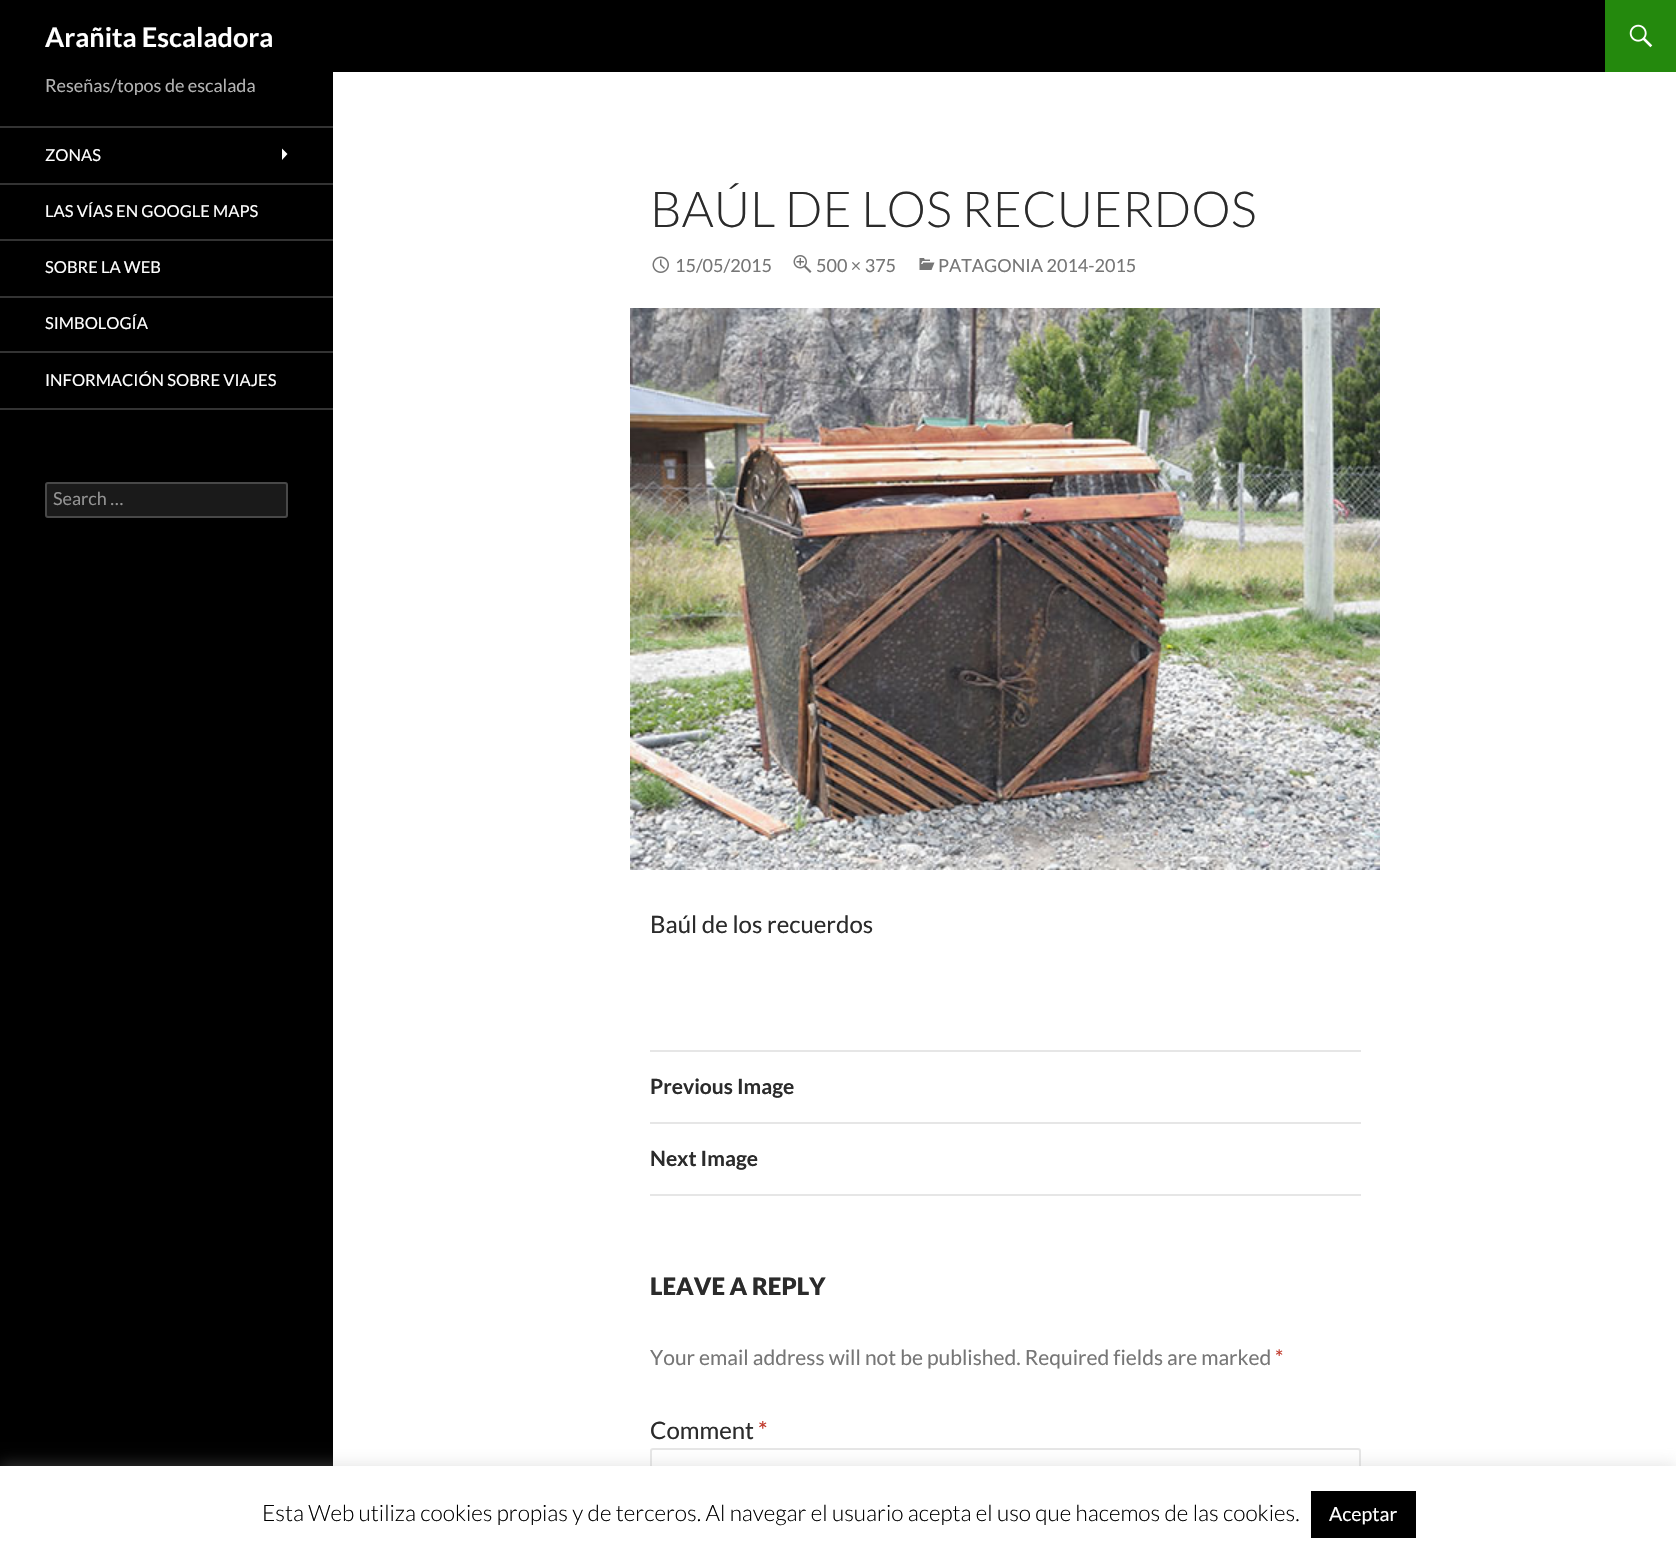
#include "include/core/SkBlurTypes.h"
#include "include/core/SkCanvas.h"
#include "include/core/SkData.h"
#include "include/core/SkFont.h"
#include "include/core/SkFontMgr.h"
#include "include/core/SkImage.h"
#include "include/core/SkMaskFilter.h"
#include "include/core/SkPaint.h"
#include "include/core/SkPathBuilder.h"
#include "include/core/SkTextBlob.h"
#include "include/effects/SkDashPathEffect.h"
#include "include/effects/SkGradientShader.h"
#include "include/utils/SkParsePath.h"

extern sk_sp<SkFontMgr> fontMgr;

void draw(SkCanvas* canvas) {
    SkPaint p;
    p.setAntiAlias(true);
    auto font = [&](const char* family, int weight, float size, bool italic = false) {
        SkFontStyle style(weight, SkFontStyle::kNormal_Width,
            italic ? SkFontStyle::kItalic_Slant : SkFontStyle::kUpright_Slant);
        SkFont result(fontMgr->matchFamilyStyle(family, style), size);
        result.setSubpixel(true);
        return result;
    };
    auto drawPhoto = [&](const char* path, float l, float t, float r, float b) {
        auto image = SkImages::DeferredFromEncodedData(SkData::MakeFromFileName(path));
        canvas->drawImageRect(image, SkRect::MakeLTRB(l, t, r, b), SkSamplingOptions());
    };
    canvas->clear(0xFFFFFFFF);
    p.setColor(0xFF000000);
    canvas->drawRect(SkRect::MakeLTRB(0, 0, 1605, 72), p);
    auto font1 = font("Lato", 700, 27);
    p.setColor(0xFFFFFFFF);
    canvas->drawString("Arañita Escaladora", 45, 47, font1, p);
    p.setColor(0xFF24890D);
    canvas->drawRect(SkRect::MakeLTRB(1605, 0, 1676, 72), p);
    drawPhoto("media/1.png", 1629, 24, 1653, 48);
    p.setColor(0xFF000000);
    canvas->drawRect(SkRect::MakeLTRB(0, 72, 333, 1466), p);
    auto font2 = font("Lato", 400, 18);
    p.setColor(0xFFB3B3B3);
    canvas->drawString("Reseñas/topos de escalada", 45, 92, font2, p);
    p.setColor(0xFF333333);
    canvas->drawRect(SkRect::MakeLTRB(0, 408, 333, 410), p);
    canvas->drawRect(SkRect::MakeLTRB(0, 126, 333, 128), p);
    auto font3 = font("Lato", 400, 16.5f);
    p.setColor(0xFFFFFFFF);
    canvas->drawString("ZONAS", 45, 161, font3, p);
    canvas->drawPath(SkPathBuilder().moveTo(282, 160).lineTo(287.5f, 154).lineTo(282, 148.5f).close().detach(), p);
    p.setColor(0xFF333333);
    canvas->drawRect(SkRect::MakeLTRB(0, 183, 333, 185), p);
    p.setColor(0xFFFFFFFF);
    canvas->drawString("LAS VÍAS EN GOOGLE MAPS", 45, 217, font3, p);
    p.setColor(0xFF333333);
    canvas->drawRect(SkRect::MakeLTRB(0, 239, 333, 241), p);
    p.setColor(0xFFFFFFFF);
    canvas->drawString("SOBRE LA WEB", 45, 273, font3, p);
    p.setColor(0xFF333333);
    canvas->drawRect(SkRect::MakeLTRB(0, 296, 333, 298), p);
    p.setColor(0xFFFFFFFF);
    canvas->drawString("SIMBOLOGÍA", 45, 329, font3, p);
    p.setColor(0xFF333333);
    canvas->drawRect(SkRect::MakeLTRB(0, 351, 333, 353), p);
    p.setColor(0xFFFFFFFF);
    canvas->drawString("INFORMACIÓN SOBRE VIAJES", 45, 386, font3, p);
    p.setColor(0xFF1A1A1A);
    canvas->drawRoundRect(SkRect::MakeLTRB(45, 482, 288, 518), 3, 3, p);
    p.setStyle(SkPaint::kStroke_Style);
    p.setStrokeWidth(2);
    p.setColor(0x33FFFFFF);
    canvas->drawRoundRect(SkRect::MakeLTRB(46, 483, 287, 517), 2, 2, p);
    p.setStyle(SkPaint::kFill_Style);
    p.setColor(0xFF939393);
    canvas->drawString("Search …", 53, 505, font2, p);
    auto font4 = font("Lato", 300, 49.5f);
    p.setColor(0xFF2B2B2B);
    canvas->drawString("BAÚL DE LOS RECUERDOS", 650, 227, font4, p);
    drawPhoto("media/2.png", 652, 256, 669, 273);
    p.setColor(0xFF767676);
    canvas->drawString("15/05/2015", 675, 272, font2, p);
    drawPhoto("media/3.png", 793, 255, 812, 273);
    canvas->drawString("500 × 375", 816, 272, font2, p);
    drawPhoto("media/4.png", 919, 258, 935, 270);
    canvas->drawString("PATAGONIA 2014-2015", 938, 272, font2, p);
    drawPhoto("media/5.png", 630, 308, 1380, 870);
    auto font5 = font("Lato", 400, 24);
    p.setColor(0xFF2B2B2B);
    canvas->drawString("Baúl de los recuerdos", 650, 933, font5, p);
    p.setColor(0xFFE6E6E6);
    canvas->drawRect(SkRect::MakeLTRB(650, 1050, 1361, 1052), p);
    canvas->drawRect(SkRect::MakeLTRB(650, 1122, 1361, 1124), p);
    auto font6 = font("Lato", 700, 21);
    p.setColor(0xFF2B2B2B);
    canvas->drawString("Previous Image", 650, 1094, font6, p);
    p.setColor(0xFFE6E6E6);
    canvas->drawRect(SkRect::MakeLTRB(650, 1194, 1361, 1196), p);
    p.setColor(0xFF2B2B2B);
    canvas->drawString("Next Image", 650, 1166, font6, p);
    auto font7 = font("Lato", 900, 24);
    canvas->drawString("LEAVE A REPLY", 650, 1295, font7, p);
    auto font8 = font("Lato", 400, 21);
    p.setColor(0xFF767676);
    canvas->drawString("Your email address will not be published. Required fields are marked", 650, 1365, font8, p);
    p.setColor(0xFFC0392B);
    canvas->drawString("*", 1275, 1365, font8, p);
    p.setColor(0xFF2B2B2B);
    canvas->drawString("Comment", 650, 1439, font5, p);
    p.setColor(0xFFC0392B);
    canvas->drawString("*", 758, 1439, font5, p);
    p.setStyle(SkPaint::kStroke_Style);
    p.setColor(0xFFE6E6E6);
    canvas->drawRoundRect(SkRect::MakeLTRB(651, 1449, 1360, 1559), 2, 2, p);
    p.setStyle(SkPaint::kFill_Style);
    p.setColor(0x4DACABAB);
    p.setMaskFilter(SkMaskFilter::MakeBlur(kNormal_SkBlurStyle, 7.5f));
    canvas->drawRect(SkRect::MakeLTRB(0, 1464, 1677, 1554), p);
    p.setMaskFilter(nullptr);
    p.setColor(0xFFFFFFFF);
    canvas->drawRect(SkRect::MakeLTRB(0, 1466, 1676, 1555), p);
    auto font9 = font("Lato", 300, 22.5f);
    p.setColor(0xFF000000);
    canvas->drawString("Esta Web utiliza cookies propias y de terceros. Al navegar el usuario acepta el uso que hacemos de las cookies.", 262, 1521, font9, p);
    canvas->drawRect(SkRect::MakeLTRB(1311, 1491, 1416, 1538), p);
    auto font10 = font("Lato", 400, 19.5f);
    p.setColor(0xFFFFFFFF);
    canvas->drawString("Aceptar", 1329, 1521, font10, p);
}
